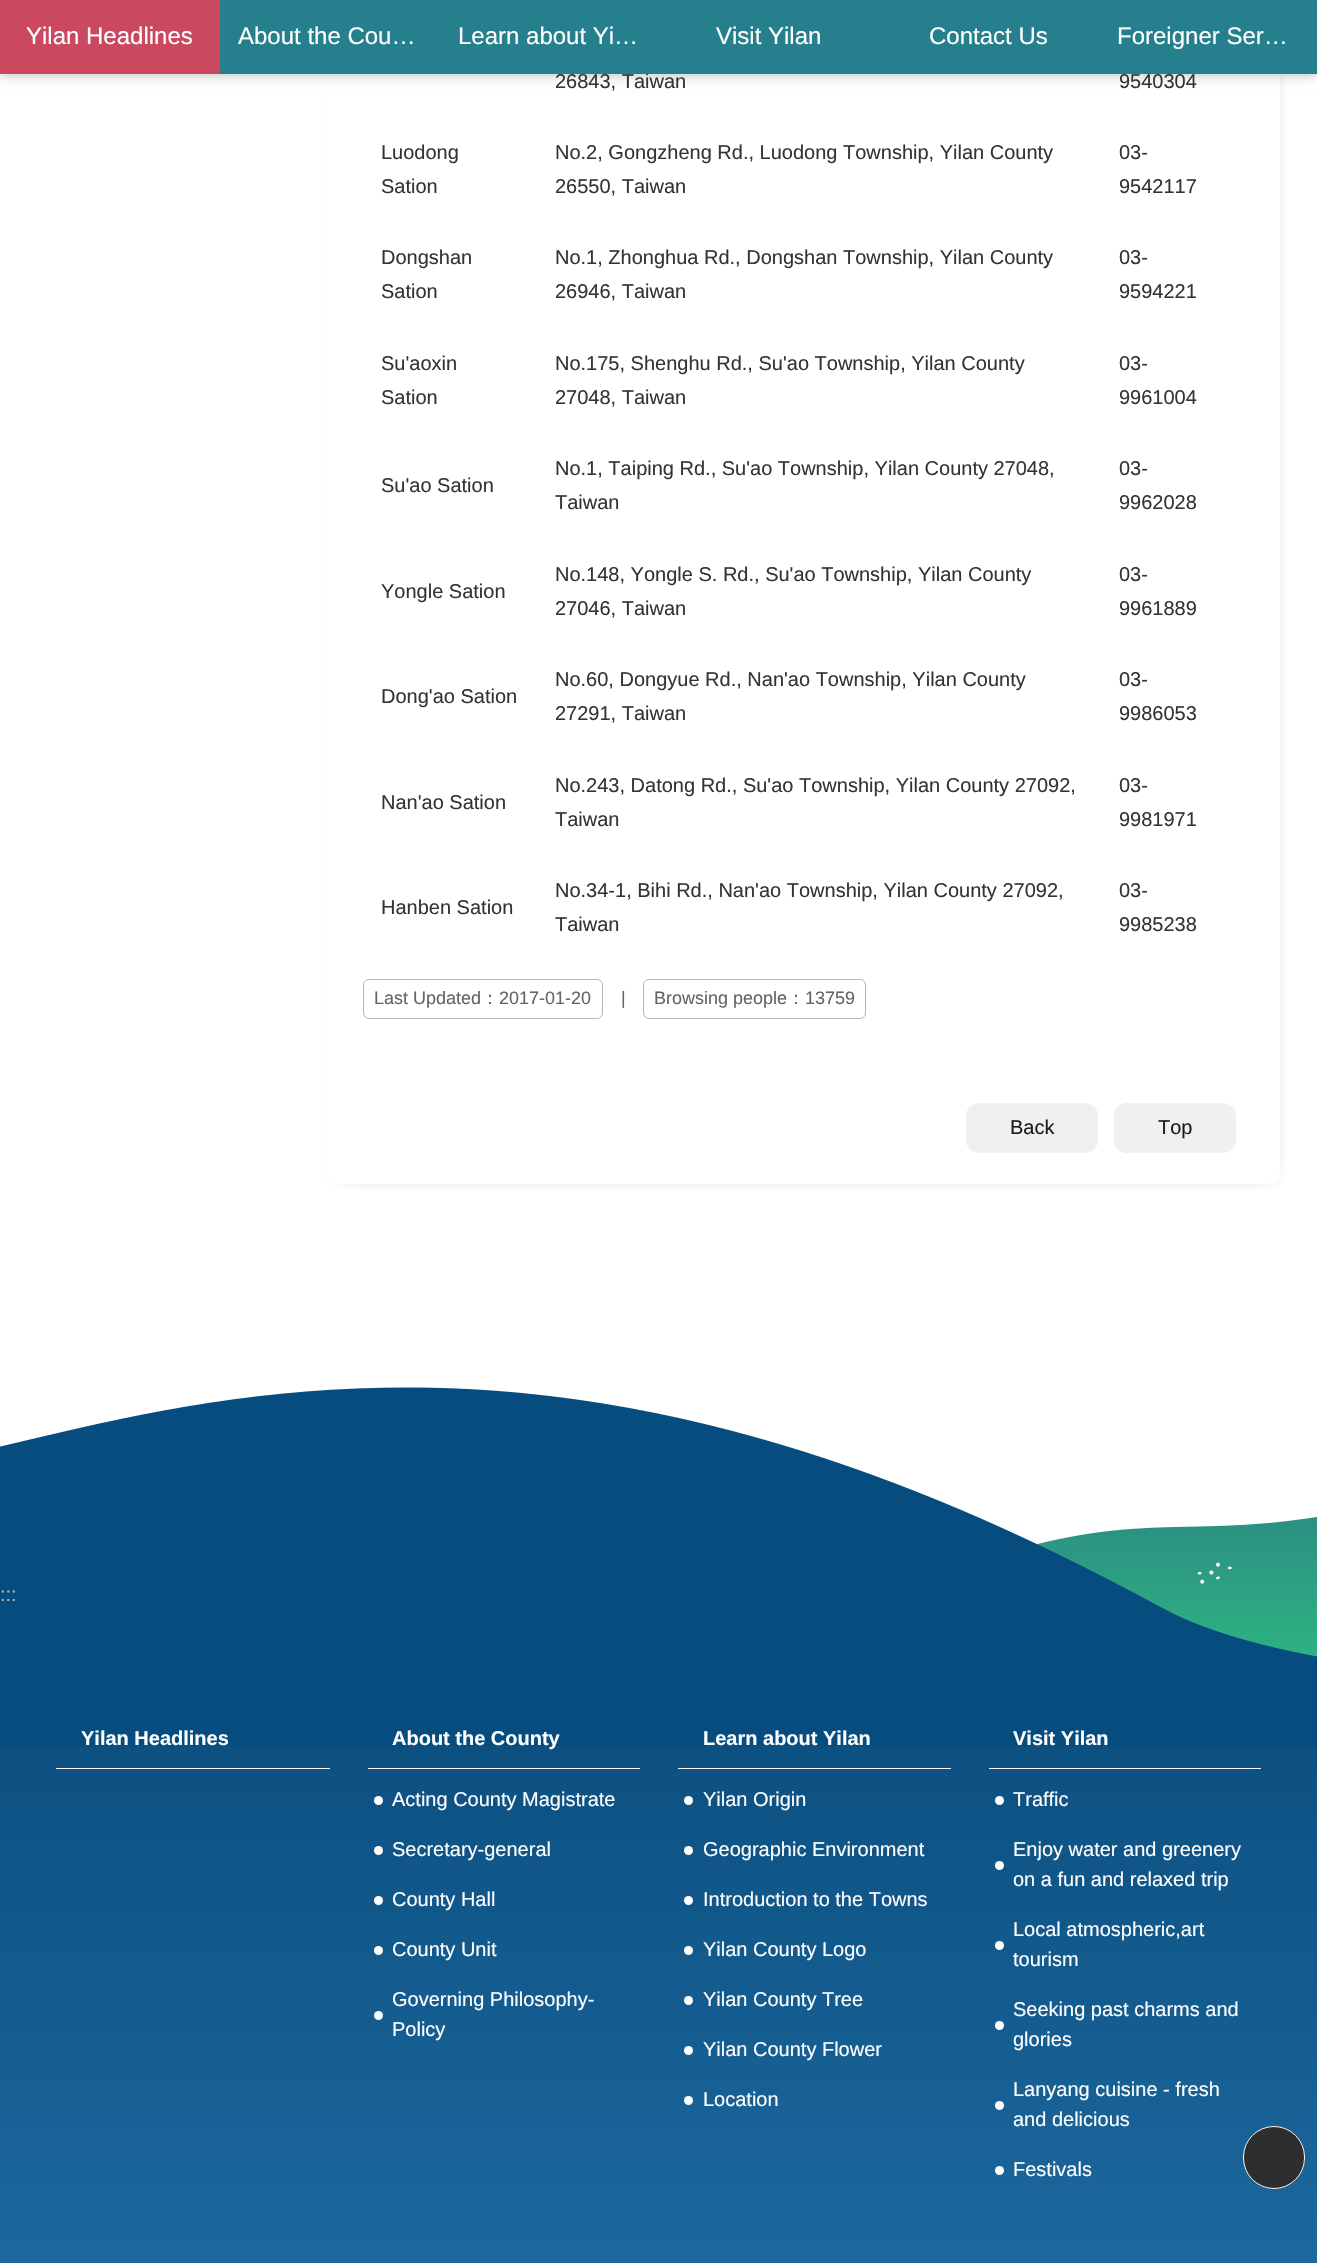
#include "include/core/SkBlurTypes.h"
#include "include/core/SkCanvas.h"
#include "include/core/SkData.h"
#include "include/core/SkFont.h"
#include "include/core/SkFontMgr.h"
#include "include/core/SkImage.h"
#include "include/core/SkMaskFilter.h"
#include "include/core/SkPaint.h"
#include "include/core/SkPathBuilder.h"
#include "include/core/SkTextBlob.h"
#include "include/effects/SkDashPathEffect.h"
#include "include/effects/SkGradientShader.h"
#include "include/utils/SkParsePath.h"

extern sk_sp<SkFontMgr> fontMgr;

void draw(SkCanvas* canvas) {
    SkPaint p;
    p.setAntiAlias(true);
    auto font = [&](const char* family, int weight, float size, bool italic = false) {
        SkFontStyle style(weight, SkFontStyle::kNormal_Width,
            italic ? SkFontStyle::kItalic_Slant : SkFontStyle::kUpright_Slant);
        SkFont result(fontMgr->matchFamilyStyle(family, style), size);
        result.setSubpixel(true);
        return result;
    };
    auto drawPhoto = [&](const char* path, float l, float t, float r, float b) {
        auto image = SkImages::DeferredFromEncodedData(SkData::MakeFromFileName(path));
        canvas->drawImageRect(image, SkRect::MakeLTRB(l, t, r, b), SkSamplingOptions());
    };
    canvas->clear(0xFFFFFFFF);
    p.setColor(0x7D2A2A2A);
    p.setMaskFilter(SkMaskFilter::MakeBlur(kNormal_SkBlurStyle, 8));
    canvas->drawRoundRect(SkRect::MakeLTRB(339, -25, 1271, 1175), 1, 1, p);
    p.setMaskFilter(nullptr);
    p.setColor(0xFFFFFFFF);
    canvas->drawRoundRect(SkRect::MakeLTRB(325, -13, 1280, 1184), 13, 13, p);
    p.setColor(0xFFB6B6B6);
    p.setMaskFilter(SkMaskFilter::MakeBlur(kNormal_SkBlurStyle, 6));
    canvas->drawRect(SkRect::MakeLTRB(0, 0, 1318, 74), p);
    p.setMaskFilter(nullptr);
    auto font1 = font("Liberation Sans", 400, 20);
    p.setColor(0xFF343434);
    canvas->drawString("26843, Taiwan", 555, 88, font1, p);
    p.setColor(0xFF257F8D);
    canvas->drawRect(SkRect::MakeLTRB(220, 0, 1317, 74), p);
    p.setColor(0xFFCA4961);
    canvas->drawRect(SkRect::MakeLTRB(0, 0, 220, 74), p);
    auto font2 = font("Liberation Sans", 400, 24);
    p.setColor(0xFFFFFFFF);
    {
        const struct { const char* s; float x, y; } items[] = {
            {"Yilan Headlines", 26, 44},
            {"About the Cou…", 238, 44},
            {"Learn about Yi…", 458, 44},
            {"Visit Yilan", 716, 44},
            {"Contact Us", 929, 44},
            {"Foreigner Ser…", 1117, 44},
        };
        for (auto [s, x, y] : items) {
            canvas->drawString(s, x, y, font2, p);
        }
    }
    p.setColor(0xFF343434);
    {
        const struct { const char* s; float x, y; } items[] = {
            {"9540304", 1119, 88},
            {"Luodong", 381, 159},
            {"Sation", 381, 193},
            {"No.2, Gongzheng Rd., Luodong Township, Yilan County", 555, 159},
            {"26550, Taiwan", 555, 193},
            {"03-", 1119, 159},
            {"9542117", 1119, 193},
            {"Dongshan", 381, 264},
            {"Sation", 381, 298},
            {"No.1, Zhonghua Rd., Dongshan Township, Yilan County", 555, 264},
            {"26946, Taiwan", 555, 298},
            {"03-", 1119, 264},
            {"9594221", 1119, 298},
            {"Su'aoxin", 381, 370},
            {"Sation", 381, 404},
            {"No.175, Shenghu Rd., Su'ao Township, Yilan County", 555, 370},
            {"27048, Taiwan", 555, 404},
            {"03-", 1119, 370},
            {"9961004", 1119, 404},
            {"Su'ao Sation", 381, 492},
            {"No.1, Taiping Rd., Su'ao Township, Yilan County 27048,", 555, 475},
            {"Taiwan", 555, 509},
            {"03-", 1119, 475},
            {"9962028", 1119, 509},
            {"Yongle Sation", 381, 598},
            {"No.148, Yongle S. Rd., Su'ao Township, Yilan County", 555, 581},
            {"27046, Taiwan", 555, 615},
            {"03-", 1119, 581},
            {"9961889", 1119, 615},
            {"Dong'ao Sation", 381, 703},
            {"No.60, Dongyue Rd., Nan'ao Township, Yilan County", 555, 686},
            {"27291, Taiwan", 555, 720},
            {"03-", 1119, 686},
            {"9986053", 1119, 720},
            {"Nan'ao Sation", 381, 809},
            {"No.243, Datong Rd., Su'ao Township, Yilan County 27092,", 555, 792},
            {"Taiwan", 555, 826},
            {"03-", 1119, 792},
            {"9981971", 1119, 826},
            {"Hanben Sation", 381, 914},
            {"No.34-1, Bihi Rd., Nan'ao Township, Yilan County 27092,", 555, 897},
            {"Taiwan", 555, 931},
            {"03-", 1119, 897},
            {"9985238", 1119, 931},
        };
        for (auto [s, x, y] : items) {
            canvas->drawString(s, x, y, font1, p);
        }
    }
    p.setStyle(SkPaint::kStroke_Style);
    p.setStrokeWidth(1);
    p.setColor(0xFFB6B6B6);
    canvas->drawRoundRect(SkRect::MakeLTRB(363.5f, 979.5f, 602.5f, 1018.5f), 5.5f, 5.5f, p);
    auto font3 = font("Liberation Sans", 400, 18);
    p.setStyle(SkPaint::kFill_Style);
    p.setColor(0xFF646464);
    canvas->drawString("Last Updated", 374, 1004, font3, p);
    auto font4 = font("WenQuanYi Zen Hei", 500, 18);
    canvas->drawString("：", 481, 1004, font4, p);
    canvas->drawString("2017-01-20", 499, 1004, font3, p);
    canvas->drawString("|", 621, 1004, font3, p);
    p.setStyle(SkPaint::kStroke_Style);
    p.setColor(0xFFB6B6B6);
    canvas->drawRoundRect(SkRect::MakeLTRB(643.5f, 979.5f, 865.5f, 1018.5f), 5.5f, 5.5f, p);
    p.setStyle(SkPaint::kFill_Style);
    p.setColor(0xFF646464);
    canvas->drawString("Browsing people", 654, 1004, font3, p);
    canvas->drawString("：", 787, 1004, font4, p);
    canvas->drawString("13759", 805, 1004, font3, p);
    p.setColor(0xFFF0F0F0);
    canvas->drawRoundRect(SkRect::MakeLTRB(966, 1103, 1098, 1153), 13, 13, p);
    p.setColor(0xFF1A1A1A);
    canvas->drawString("Back", 1010, 1134, font1, p);
    p.setColor(0xFFF0F0F0);
    canvas->drawRoundRect(SkRect::MakeLTRB(1114, 1103, 1236, 1153), 13, 13, p);
    p.setColor(0xFF1A1A1A);
    canvas->drawString("Top", 1158, 1134, font1, p);
    {
        const SkColor colors[] = {0xFF074978, 0xFF2A7CB7};
        const float stops[] = {0, 1};
        const SkPoint ends[] = {{659, 1584}, {659, 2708}};
        p.setShader(SkGradientShader::MakeLinear(ends, colors, stops, 2, SkTileMode::kClamp));
        p.setAlpha(255);
    }
    canvas->drawRect(SkRect::MakeLTRB(0, 1746, 1317, 2263), p);
    drawPhoto("media/1.png", 0, 1387, 1317, 1746);
    p.setShader(nullptr);
    p.setColor(0xFFB6B6B6);
    canvas->drawString(":::", 0, 1601, font1, p);
    p.setColor(0xFFFFFFFF);
    canvas->drawRect(SkRect::MakeLTRB(56, 1768, 330, 1769), p);
    auto font5 = font("Liberation Sans", 700, 20);
    canvas->drawString("Yilan Headlines", 81, 1745, font5, p);
    canvas->drawRect(SkRect::MakeLTRB(368, 1768, 640, 1769), p);
    canvas->drawString("About the County", 392, 1745, font5, p);
    canvas->drawCircle(378.5f, 1800.5f, 4.5f, p);
    canvas->drawString("Acting County Magistrate", 392, 1806, font1, p);
    canvas->drawCircle(378.5f, 1850.5f, 4.5f, p);
    canvas->drawString("Secretary-general", 392, 1856, font1, p);
    canvas->drawCircle(378.5f, 1900.5f, 4.5f, p);
    canvas->drawString("County Hall", 392, 1906, font1, p);
    canvas->drawCircle(378.5f, 1950.5f, 4.5f, p);
    canvas->drawString("County Unit", 392, 1956, font1, p);
    canvas->drawCircle(378.5f, 2015.5f, 4.5f, p);
    canvas->drawString("Governing Philosophy-", 392, 2006, font1, p);
    canvas->drawString("Policy", 392, 2036, font1, p);
    canvas->drawRect(SkRect::MakeLTRB(678, 1768, 951, 1769), p);
    canvas->drawString("Learn about Yilan", 703, 1745, font5, p);
    canvas->drawCircle(688.5f, 1800.5f, 4.5f, p);
    canvas->drawString("Yilan Origin", 703, 1806, font1, p);
    canvas->drawCircle(688.5f, 1850.5f, 4.5f, p);
    canvas->drawString("Geographic Environment", 703, 1856, font1, p);
    canvas->drawCircle(688.5f, 1900.5f, 4.5f, p);
    canvas->drawString("Introduction to the Towns", 703, 1906, font1, p);
    canvas->drawCircle(688.5f, 1950.5f, 4.5f, p);
    canvas->drawString("Yilan County Logo", 703, 1956, font1, p);
    canvas->drawCircle(688.5f, 2000.5f, 4.5f, p);
    canvas->drawString("Yilan County Tree", 703, 2006, font1, p);
    canvas->drawCircle(688.5f, 2050.5f, 4.5f, p);
    canvas->drawString("Yilan County Flower", 703, 2056, font1, p);
    canvas->drawCircle(688.5f, 2100.5f, 4.5f, p);
    canvas->drawString("Location", 703, 2106, font1, p);
    canvas->drawRect(SkRect::MakeLTRB(989, 1768, 1261, 1769), p);
    canvas->drawString("Visit Yilan", 1013, 1745, font5, p);
    canvas->drawCircle(999.5f, 1800.5f, 4.5f, p);
    canvas->drawString("Traffic", 1013, 1806, font1, p);
    canvas->drawCircle(999.5f, 1865.5f, 4.5f, p);
    canvas->drawString("Enjoy water and greenery", 1013, 1856, font1, p);
    canvas->drawString("on a fun and relaxed trip", 1013, 1886, font1, p);
    canvas->drawCircle(999.5f, 1945.5f, 4.5f, p);
    canvas->drawString("Local atmospheric,art", 1013, 1936, font1, p);
    canvas->drawString("tourism", 1013, 1966, font1, p);
    canvas->drawCircle(999.5f, 2025.5f, 4.5f, p);
    canvas->drawString("Seeking past charms and", 1013, 2016, font1, p);
    canvas->drawString("glories", 1013, 2046, font1, p);
    canvas->drawCircle(999.5f, 2105.5f, 4.5f, p);
    canvas->drawString("Lanyang cuisine - fresh", 1013, 2096, font1, p);
    canvas->drawString("and delicious", 1013, 2126, font1, p);
    canvas->drawCircle(999.5f, 2170.5f, 4.5f, p);
    canvas->drawString("Festivals", 1013, 2176, font1, p);
    p.setColor(0xFA2D2D2D);
    canvas->drawRoundRect(SkRect::MakeLTRB(1243, 2126, 1305, 2189), 31, 31, p);
    p.setStyle(SkPaint::kStroke_Style);
    p.setColor(0xFAFFFFFF);
    canvas->drawRoundRect(SkRect::MakeLTRB(1243.5f, 2126.5f, 1304.5f, 2188.5f), 30.5f, 30.5f, p);
}
